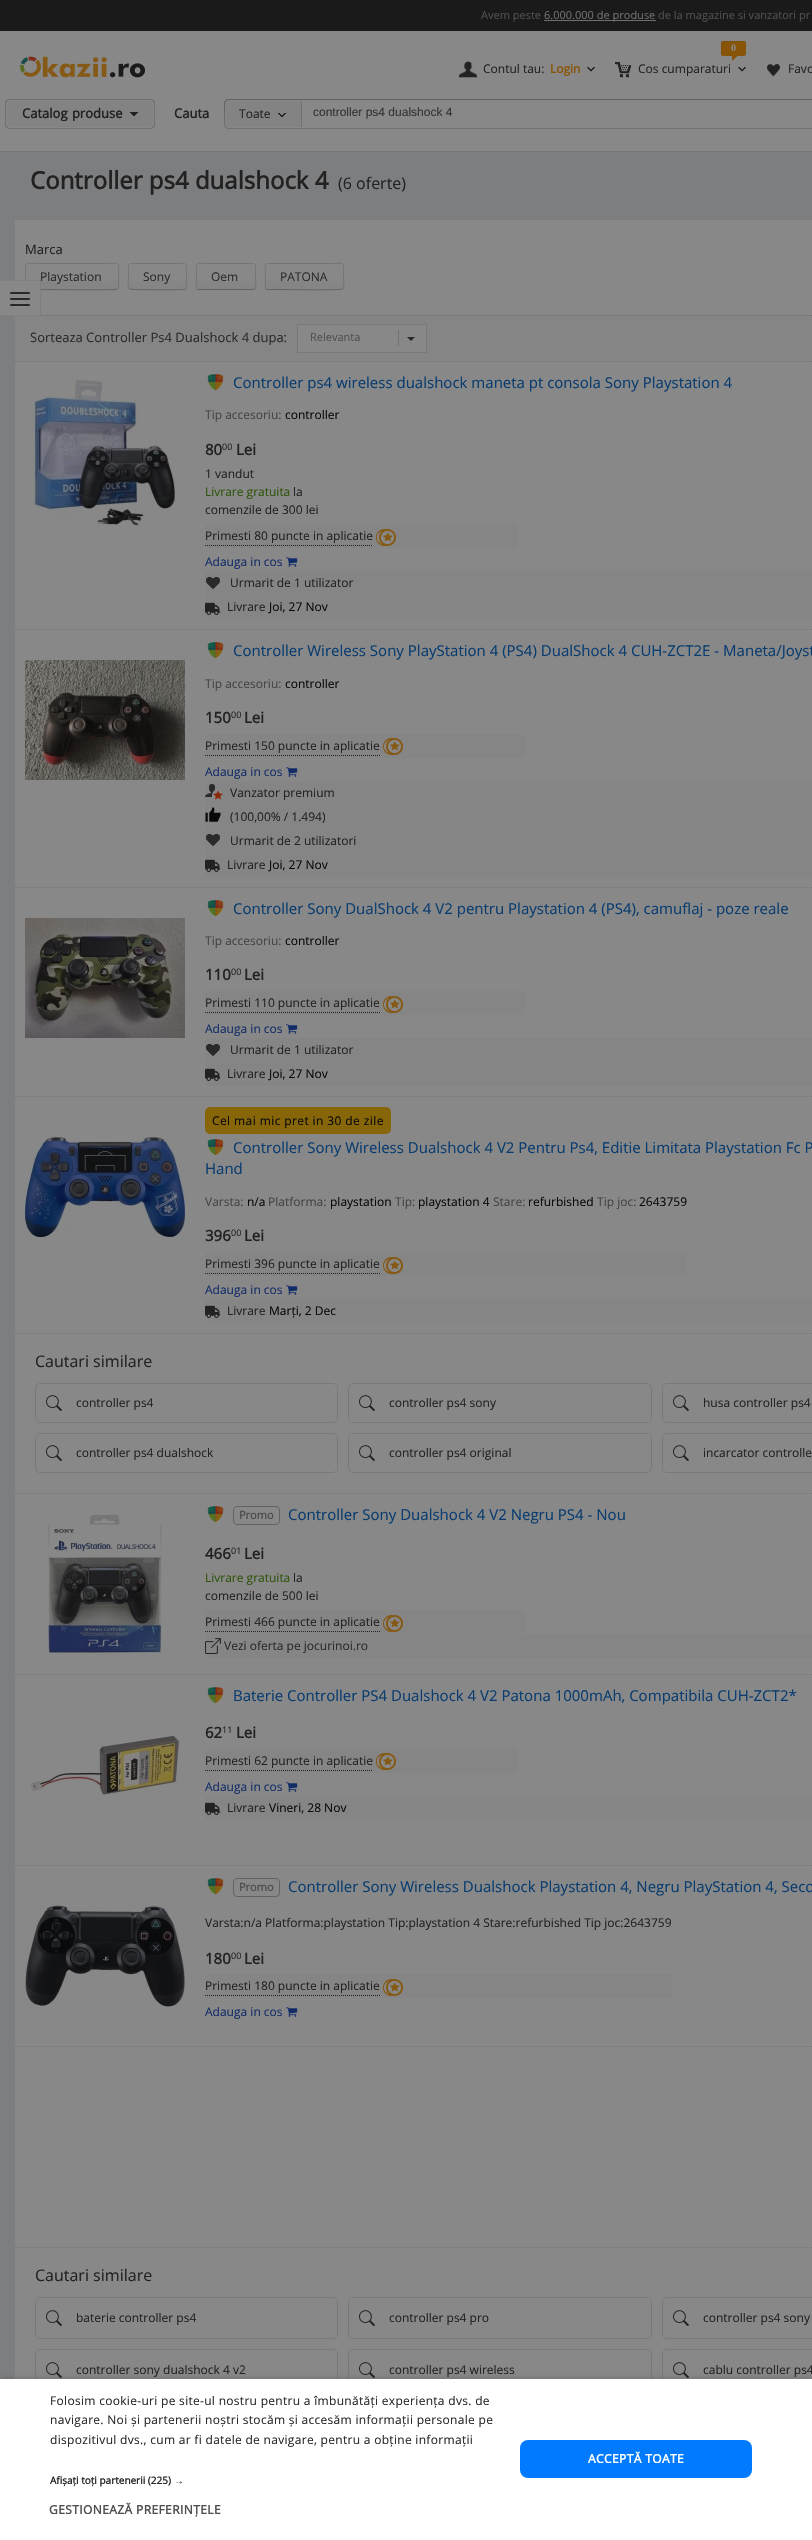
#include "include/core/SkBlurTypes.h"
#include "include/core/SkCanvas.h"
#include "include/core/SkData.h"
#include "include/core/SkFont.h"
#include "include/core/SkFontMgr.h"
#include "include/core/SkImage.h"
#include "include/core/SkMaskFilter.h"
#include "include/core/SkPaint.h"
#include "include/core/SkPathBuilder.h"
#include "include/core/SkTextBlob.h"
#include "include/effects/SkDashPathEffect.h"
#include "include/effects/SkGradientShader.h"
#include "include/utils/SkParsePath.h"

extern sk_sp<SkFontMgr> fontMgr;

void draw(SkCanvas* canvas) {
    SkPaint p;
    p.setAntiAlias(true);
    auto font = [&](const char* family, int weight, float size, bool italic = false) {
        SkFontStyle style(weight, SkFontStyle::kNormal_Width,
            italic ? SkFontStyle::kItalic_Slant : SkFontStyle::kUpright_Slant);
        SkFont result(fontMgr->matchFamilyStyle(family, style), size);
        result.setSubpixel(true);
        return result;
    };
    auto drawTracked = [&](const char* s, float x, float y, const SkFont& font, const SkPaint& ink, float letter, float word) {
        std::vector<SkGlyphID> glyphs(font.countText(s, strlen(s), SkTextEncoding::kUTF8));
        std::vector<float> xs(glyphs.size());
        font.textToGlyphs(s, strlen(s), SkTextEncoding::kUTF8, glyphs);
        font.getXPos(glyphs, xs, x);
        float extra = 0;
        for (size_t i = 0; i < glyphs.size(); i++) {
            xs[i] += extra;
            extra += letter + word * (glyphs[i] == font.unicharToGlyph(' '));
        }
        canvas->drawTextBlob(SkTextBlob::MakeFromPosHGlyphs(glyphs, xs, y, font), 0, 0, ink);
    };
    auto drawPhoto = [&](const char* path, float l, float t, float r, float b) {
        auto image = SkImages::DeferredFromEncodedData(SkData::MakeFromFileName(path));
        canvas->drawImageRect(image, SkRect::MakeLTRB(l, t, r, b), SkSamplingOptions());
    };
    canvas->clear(0xFF7D7E80);
    {
        const struct { float l, t, r, b; SkColor color; } items[] = {
            {0, 31, 812, 151, 0xFF888888},
            {0, 151, 812, 152, 0xFF767676},
            {0, 0, 812, 31, 0xFF1A1A1A},
        };
        for (auto [l, t, r, b, color] : items) {
            p.setColor(color);
            canvas->drawRect(SkRect::MakeLTRB(l, t, r, b), p);
        }
    }
    auto font1 = font("Open Sans", 400, 11);
    p.setColor(0xFF4F4F4F);
    canvas->drawString("Avem peste", 481, 19, font1, p);
    p.setColor(0xFF6F6F6F);
    canvas->drawRect(SkRect::MakeLTRB(544, 20, 656, 21), p);
    canvas->drawString("6.000.000 de produse", 544, 19, font1, p);
    p.setColor(0xFF4F4F4F);
    canvas->drawString("de la magazine si vanzatori pr", 658, 19, font1, p);
    drawPhoto("media/1.png", 20, 56, 145, 78);
    drawPhoto("media/2.png", 459, 61, 478, 78);
    drawPhoto("media/3.png", 587, 67, 595, 72);
    auto font2 = font("Open Sans", 400, 12);
    p.setColor(0xFF222222);
    canvas->drawString("Contul tau:", 483, 73, font2, p);
    auto font3 = font("Open Sans", 700, 12);
    p.setColor(0xFF885509);
    canvas->drawString("Login", 550, 73, font3, p);
    drawPhoto("media/4.png", 615, 62, 632, 78);
    drawPhoto("media/5.png", 725, 41, 746, 56);
    drawPhoto("media/6.png", 721, 41, 725, 56);
    auto font4 = font("Liberation Serif", 700, 10);
    p.setColor(0xFF888888);
    canvas->drawString("0", 731, 51, font4, p);
    drawPhoto("media/7.png", 732, 56, 737, 60);
    drawPhoto("media/8.png", 738, 67, 746, 72);
    p.setColor(0xFF222222);
    canvas->drawString("Cos cumparaturi", 638, 73, font2, p);
    drawPhoto("media/9.png", 767, 64, 780, 77);
    canvas->drawString("Favo", 788, 73, font2, p);
    drawPhoto("media/10.png", 10, 99, 155, 129);
    drawPhoto("media/11.png", 5, 99, 10, 129);
    drawPhoto("media/12.png", 130, 112, 138, 116);
    auto font5 = font("Open Sans", 700, 13);
    drawTracked("Catalog produse", 22, 118, font5, p, 0, 1);
    canvas->drawString("Cauta", 174, 118, font5, p);
    drawPhoto("media/13.png", 224, 99, 301, 129);
    drawPhoto("media/14.png", 277, 113, 286, 117);
    canvas->drawString("Toate", 239, 118, font2, p);
    {
        const struct { float l, t, r, b; SkColor color; } items[] = {
            {301, 101, 302, 127, 0xFF707070},
            {301, 99, 812, 100, 0xFF606060},
            {301, 128, 812, 129, 0xFF707070},
        };
        for (auto [l, t, r, b, color] : items) {
            p.setColor(color);
            canvas->drawRect(SkRect::MakeLTRB(l, t, r, b), p);
        }
    }
    auto font6 = font("Liberation Sans", 400, 12);
    p.setColor(0xFF333333);
    canvas->drawString("controller ps4 dualshock 4", 313, 116, font6, p);
    auto font7 = font("Open Sans", 700, 24);
    p.setColor(0xFF222222);
    canvas->drawString("Controller ps4 dualshock 4", 30, 189, font7, p);
    auto font8 = font("Open Sans", 400, 16);
    canvas->drawString("(6 oferte)", 338, 189, font8, p);
    p.setColor(0xFF888888);
    canvas->drawRect(SkRect::MakeLTRB(15, 220, 812, 315), p);
    p.setColor(0xFF858585);
    canvas->drawRect(SkRect::MakeLTRB(41, 281, 119, 289), p);
    p.setStyle(SkPaint::kStroke_Style);
    p.setStrokeWidth(1);
    p.setColor(0xFF646464);
    canvas->drawPath(SkPathBuilder().moveTo(118, 289).lineTo(117.5f, 289).cubicTo(115.5f, 290.5f, 50.5f, 289.5f, 42.5f, 289.5f).lineTo(28, 289.5f).lineTo(26, 289).detach(), p);
    canvas->save();
    canvas->clipRect(SkRect::MakeLTRB(25, 240, 350, 295));
    p.setColor(0xFF737373);
    canvas->drawPath(SkPathBuilder().moveTo(26, 289).cubicTo(24.5f, 287, 25.5f, 282, 25.5f, 280).cubicTo(25.5f, 260, 21.5f, 263.5f, 42.5f, 263.5f).lineTo(101.5f, 263.5f).cubicTo(122.5f, 263.5f, 118.5f, 260, 118.5f, 280).cubicTo(118.5f, 282, 119.5f, 287, 118, 289).detach(), p);
    canvas->restore();
    p.setStyle(SkPaint::kFill_Style);
    {
        const struct { float l, t, r, b; SkColor color; } items[] = {
            {0, 281, 40, 315, 0xFF888888},
            {0, 280, 41, 281, 0xFF808080},
            {15, 315, 812, 361, 0xFF858585},
        };
        for (auto [l, t, r, b, color] : items) {
            p.setColor(color);
            canvas->drawRect(SkRect::MakeLTRB(l, t, r, b), p);
        }
    }
    p.setStyle(SkPaint::kStroke_Style);
    p.setColor(0xFF6F6F6F);
    p.setPathEffect(SkDashPathEffect::Make({{1, 1}}, 0));
    canvas->drawPath(SkPathBuilder().moveTo(15, 315.5f).lineTo(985, 315.5f).detach(), p);
    p.setPathEffect(nullptr);
    p.setStyle(SkPaint::kFill_Style);
    p.setColor(0xFF808080);
    canvas->drawRect(SkRect::MakeLTRB(40, 280, 41, 316), p);
    canvas->drawRect(SkRect::MakeLTRB(0, 315, 41, 316), p);
    p.setColor(0xFF292929);
    canvas->drawRoundRect(SkRect::MakeLTRB(10, 298, 30, 300), 1, 1, p);
    canvas->drawRoundRect(SkRect::MakeLTRB(10, 292, 30, 294), 1, 1, p);
    canvas->drawRoundRect(SkRect::MakeLTRB(10, 304, 30, 306), 1, 1, p);
    auto font9 = font("Open Sans", 400, 13);
    p.setColor(0xFF222222);
    canvas->drawString("Marca", 25, 254, font9, p);
    p.setColor(0xFF2B2B2B);
    canvas->drawString("Playstation", 40, 281, font2, p);
    p.setColor(0xFF858585);
    canvas->drawRect(SkRect::MakeLTRB(128, 281, 187, 289), p);
    p.setStyle(SkPaint::kStroke_Style);
    p.setColor(0xFF646464);
    canvas->drawPath(SkPathBuilder().moveTo(186, 289).lineTo(184, 289.5f).cubicTo(179.5f, 290, 130.5f, 290, 129.5f, 289).lineTo(129, 289).detach(), p);
    p.setColor(0xFF737373);
    canvas->drawPath(SkPathBuilder().moveTo(129, 289).cubicTo(127.5f, 287, 128.5f, 279, 128.5f, 276.5f).cubicTo(128.5f, 262, 126, 263.5f, 140, 263.5f).lineTo(175, 263.5f).cubicTo(189, 263.5f, 186.5f, 262, 186.5f, 276.5f).cubicTo(186.5f, 279, 187.5f, 287, 186, 289).detach(), p);
    p.setStyle(SkPaint::kFill_Style);
    p.setColor(0xFF2B2B2B);
    canvas->drawString("Sony", 143, 281, font2, p);
    p.setColor(0xFF858585);
    canvas->drawRect(SkRect::MakeLTRB(196, 281, 256, 289), p);
    p.setStyle(SkPaint::kStroke_Style);
    p.setColor(0xFF646464);
    canvas->drawPath(SkPathBuilder().moveTo(255, 289).lineTo(253, 289.5f).lineTo(199, 289.5f).lineTo(197, 289).detach(), p);
    p.setColor(0xFF737373);
    canvas->drawPath(SkPathBuilder().moveTo(197, 289).cubicTo(195.5f, 287, 196.5f, 279, 196.5f, 276.5f).cubicTo(196.5f, 262, 194, 263.5f, 208, 263.5f).lineTo(244, 263.5f).cubicTo(258, 263.5f, 255.5f, 262, 255.5f, 276.5f).cubicTo(255.5f, 279, 256.5f, 287, 255, 289).detach(), p);
    p.setStyle(SkPaint::kFill_Style);
    p.setColor(0xFF2B2B2B);
    canvas->drawString("Oem", 211, 281, font2, p);
    p.setColor(0xFF858585);
    canvas->drawRect(SkRect::MakeLTRB(265, 281, 344, 289), p);
    p.setStyle(SkPaint::kStroke_Style);
    p.setColor(0xFF646464);
    canvas->drawPath(SkPathBuilder().moveTo(343, 289).lineTo(342.5f, 289).cubicTo(340.5f, 290.5f, 287, 289.5f, 280, 289.5f).lineTo(268, 289.5f).lineTo(266, 289).detach(), p);
    p.setColor(0xFF737373);
    canvas->drawPath(SkPathBuilder().moveTo(266, 289).cubicTo(264.5f, 287, 265.5f, 282, 265.5f, 280).cubicTo(265.5f, 261, 261.5f, 263.5f, 280, 263.5f).lineTo(329, 263.5f).cubicTo(346, 263.5f, 343.5f, 260.5f, 343.5f, 276.5f).cubicTo(343.5f, 279, 344.5f, 287, 343, 289).detach(), p);
    p.setStyle(SkPaint::kFill_Style);
    p.setColor(0xFF2B2B2B);
    canvas->drawString("PATONA", 280, 281, font2, p);
    canvas->drawString("Sorteaza Controller Ps4 Dualshock 4 dupa:", 30, 342, font9, p);
    p.setColor(0xFF888888);
    canvas->drawRect(SkRect::MakeLTRB(297.5f, 324.5f, 426.5f, 352.5f), p);
    p.setStyle(SkPaint::kStroke_Style);
    p.setColor(0xFF797979);
    canvas->drawRect(SkRect::MakeLTRB(297.5f, 324.5f, 426.5f, 352.5f), p);
    p.setStyle(SkPaint::kFill_Style);
    p.setColor(0xFF4F4F4F);
    canvas->drawString("Relevanta", 310, 341, font1, p);
    p.setColor(0xFF737373);
    canvas->drawRect(SkRect::MakeLTRB(398, 330, 399, 346), p);
    p.setColor(0xFF292929);
    canvas->drawPath(SkPathBuilder().moveTo(407, 337).lineTo(415, 337).lineTo(411, 341).close().detach(), p);
    p.setColor(0xFF888888);
    canvas->drawRect(SkRect::MakeLTRB(15, 361, 812, 2379), p);
    p.setStyle(SkPaint::kStroke_Style);
    p.setColor(0xFF757575);
    p.setPathEffect(SkDashPathEffect::Make({{1, 1}}, 0));
    canvas->drawPath(SkPathBuilder().moveTo(15, 361.5f).lineTo(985, 361.5f).detach(), p);
    p.setPathEffect(nullptr);
    drawPhoto("media/15.png", 33, 380, 176, 528);
    drawPhoto("media/16.png", 207, 374, 224, 391);
    auto font10 = font("Open Sans", 400, 15);
    p.setStyle(SkPaint::kFill_Style);
    p.setColor(0xFF093C6F);
    canvas->drawString("Controller ps4 wireless dualshock maneta pt consola Sony Playstation 4", 233, 388, font10, p);
    p.setColor(0xFF444444);
    canvas->drawString("Tip accesoriu:", 205, 419, font2, p);
    p.setColor(0xFF090909);
    canvas->drawString("controller", 285, 419, font2, p);
    auto font11 = font("Open Sans", 700, 15);
    p.setColor(0xFF222222);
    canvas->drawString("80", 205, 455, font11, p);
    auto font12 = font("Open Sans", 400, 9);
    canvas->drawString("00", 222, 450, font12, p);
    canvas->drawString("Lei", 236, 455, font11, p);
    canvas->drawString("1 vandut", 205, 478, font2, p);
    p.setColor(0xFF2F550C);
    canvas->drawString("Livrare gratuita", 205, 496, font2, p);
    p.setColor(0xFF222222);
    canvas->drawString("la", 293, 496, font2, p);
    canvas->drawString("comenzile de 300 lei", 205, 514, font2, p);
    p.setColor(0xFF858585);
    canvas->drawRoundRect(SkRect::MakeLTRB(205, 524, 518, 548), 4, 4, p);
    p.setColor(0xFF222222);
    canvas->drawString("Primesti 80 puncte in aplicatie", 205, 540, font2, p);
    p.setStyle(SkPaint::kStroke_Style);
    p.setPathEffect(SkDashPathEffect::Make({{1, 1}}, 0));
    canvas->drawPath(SkPathBuilder().moveTo(205, 545.5f).lineTo(373, 545.5f).detach(), p);
    p.setPathEffect(nullptr);
    drawPhoto("media/17.png", 376, 529, 396, 546);
    p.setStyle(SkPaint::kFill_Style);
    p.setColor(0xFF132C68);
    canvas->drawString("Adauga in cos", 205, 566, font2, p);
    drawPhoto("media/18.png", 286, 557, 298, 567);
    p.setColor(0xFF858585);
    canvas->drawRoundRect(SkRect::MakeLTRB(205, 571, 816, 619), 4, 4, p);
    drawPhoto("media/19.png", 206, 577, 220, 589);
    p.setColor(0xFF222222);
    canvas->drawString("Urmarit de 1 utilizator", 230, 587, font2, p);
    drawPhoto("media/20.png", 205, 602, 221, 615);
    canvas->drawString("Livrare", 227, 611, font2, p);
    p.setColor(0xFF090909);
    canvas->drawString("Joi, 27 Nov", 269, 611, font2, p);
    p.setStyle(SkPaint::kStroke_Style);
    p.setColor(0xFF757575);
    p.setPathEffect(SkDashPathEffect::Make({{1, 1}}, 0));
    canvas->drawPath(SkPathBuilder().moveTo(15, 629.5f).lineTo(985, 629.5f).detach(), p);
    p.setPathEffect(nullptr);
    drawPhoto("media/21.png", 25, 660, 185, 780);
    drawPhoto("media/16.png", 207, 642, 224, 659);
    p.setStyle(SkPaint::kFill_Style);
    p.setColor(0xFF093C6F);
    canvas->drawString("Controller Wireless Sony PlayStation 4 (PS4) DualShock 4 CUH-ZCT2E - Maneta/Joyst", 233, 656, font10, p);
    p.setColor(0xFF444444);
    canvas->drawString("Tip accesoriu:", 205, 688, font2, p);
    p.setColor(0xFF090909);
    canvas->drawString("controller", 285, 688, font2, p);
    p.setColor(0xFF222222);
    canvas->drawString("150", 205, 723, font11, p);
    canvas->drawString("00", 231, 718, font12, p);
    canvas->drawString("Lei", 244, 723, font11, p);
    p.setColor(0xFF858585);
    canvas->drawRoundRect(SkRect::MakeLTRB(205, 734, 525, 758), 4, 4, p);
    p.setColor(0xFF222222);
    canvas->drawString("Primesti 150 puncte in aplicatie", 205, 750, font2, p);
    p.setStyle(SkPaint::kStroke_Style);
    p.setPathEffect(SkDashPathEffect::Make({{1, 1}}, 0));
    canvas->drawPath(SkPathBuilder().moveTo(205, 755.5f).lineTo(380, 755.5f).detach(), p);
    p.setPathEffect(nullptr);
    drawPhoto("media/17.png", 383, 738, 403, 755);
    p.setStyle(SkPaint::kFill_Style);
    p.setColor(0xFF132C68);
    canvas->drawString("Adauga in cos", 205, 776, font2, p);
    drawPhoto("media/18.png", 286, 767, 298, 777);
    p.setColor(0xFF858585);
    canvas->drawRoundRect(SkRect::MakeLTRB(205, 781, 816, 877), 4, 4, p);
    drawPhoto("media/22.png", 205, 784, 223, 800);
    p.setColor(0xFF222222);
    canvas->drawString("Vanzator premium", 230, 797, font2, p);
    drawPhoto("media/23.png", 205, 807, 221, 822);
    canvas->drawString("(100,00% / 1.494)", 230, 821, font2, p);
    drawPhoto("media/19.png", 206, 834, 220, 846);
    canvas->drawString("Urmarit de 2 utilizatori", 230, 845, font2, p);
    drawPhoto("media/20.png", 205, 859, 221, 872);
    canvas->drawString("Livrare", 227, 869, font2, p);
    p.setColor(0xFF090909);
    canvas->drawString("Joi, 27 Nov", 269, 869, font2, p);
    p.setStyle(SkPaint::kStroke_Style);
    p.setColor(0xFF757575);
    p.setPathEffect(SkDashPathEffect::Make({{1, 1}}, 0));
    canvas->drawPath(SkPathBuilder().moveTo(15, 887.5f).lineTo(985, 887.5f).detach(), p);
    p.setPathEffect(nullptr);
    drawPhoto("media/24.png", 25, 918, 185, 1038);
    drawPhoto("media/16.png", 207, 900, 224, 917);
    p.setStyle(SkPaint::kFill_Style);
    p.setColor(0xFF093C6F);
    canvas->drawString("Controller Sony DualShock 4 V2 pentru Playstation 4 (PS4), camuflaj - poze reale", 233, 914, font10, p);
    p.setColor(0xFF444444);
    canvas->drawString("Tip accesoriu:", 205, 945, font2, p);
    p.setColor(0xFF090909);
    canvas->drawString("controller", 285, 945, font2, p);
    p.setColor(0xFF222222);
    canvas->drawString("110", 205, 980, font11, p);
    canvas->drawString("00", 231, 975, font12, p);
    canvas->drawString("Lei", 244, 980, font11, p);
    p.setColor(0xFF858585);
    canvas->drawRoundRect(SkRect::MakeLTRB(205, 991, 525, 1015), 4, 4, p);
    p.setColor(0xFF222222);
    canvas->drawString("Primesti 110 puncte in aplicatie", 205, 1007, font2, p);
    p.setStyle(SkPaint::kStroke_Style);
    p.setPathEffect(SkDashPathEffect::Make({{1, 1}}, 0));
    canvas->drawPath(SkPathBuilder().moveTo(205, 1012.5f).lineTo(380, 1012.5f).detach(), p);
    p.setPathEffect(nullptr);
    drawPhoto("media/17.png", 383, 996, 403, 1013);
    p.setStyle(SkPaint::kFill_Style);
    p.setColor(0xFF132C68);
    canvas->drawString("Adauga in cos", 205, 1033, font2, p);
    drawPhoto("media/18.png", 286, 1024, 298, 1034);
    p.setColor(0xFF858585);
    canvas->drawRoundRect(SkRect::MakeLTRB(205, 1038, 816, 1086), 4, 4, p);
    drawPhoto("media/19.png", 206, 1044, 220, 1056);
    p.setColor(0xFF222222);
    canvas->drawString("Urmarit de 1 utilizator", 230, 1054, font2, p);
    drawPhoto("media/20.png", 205, 1068, 221, 1081);
    canvas->drawString("Livrare", 227, 1078, font2, p);
    p.setColor(0xFF090909);
    canvas->drawString("Joi, 27 Nov", 269, 1078, font2, p);
    p.setStyle(SkPaint::kStroke_Style);
    p.setColor(0xFF757575);
    p.setPathEffect(SkDashPathEffect::Make({{1, 1}}, 0));
    canvas->drawPath(SkPathBuilder().moveTo(15, 1096.5f).lineTo(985, 1096.5f).detach(), p);
    p.setPathEffect(nullptr);
    drawPhoto("media/25.png", 25, 1135, 185, 1243);
    p.setStyle(SkPaint::kFill_Style);
    p.setColor(0xFF87660A);
    canvas->drawRoundRect(SkRect::MakeLTRB(205, 1107, 391, 1134), 5, 5, p);
    p.setColor(0xFF090909);
    drawTracked("Cel mai mic pret in 30 de zile", 212, 1125, font2, p, 0.4f, 0);
    drawPhoto("media/16.png", 207, 1139, 224, 1156);
    p.setColor(0xFF093C6F);
    canvas->drawString("Controller Sony Wireless Dualshock 4 V2 Pentru Ps4, Editie Limitata Playstation Fc P", 233, 1153, font10, p);
    canvas->drawString("Hand", 205, 1174, font10, p);
    p.setColor(0xFF444444);
    canvas->drawString("Varsta:", 205, 1206, font2, p);
    p.setColor(0xFF090909);
    canvas->drawString("n/a", 247, 1206, font2, p);
    p.setColor(0xFF444444);
    canvas->drawString("Platforma:", 268, 1206, font2, p);
    p.setColor(0xFF090909);
    canvas->drawString("playstation", 330, 1206, font2, p);
    p.setColor(0xFF444444);
    canvas->drawString("Tip:", 395, 1206, font2, p);
    p.setColor(0xFF090909);
    canvas->drawString("playstation 4", 418, 1206, font2, p);
    p.setColor(0xFF444444);
    canvas->drawString("Stare:", 493, 1206, font2, p);
    p.setColor(0xFF090909);
    canvas->drawString("refurbished", 528, 1206, font2, p);
    p.setColor(0xFF444444);
    canvas->drawString("Tip joc:", 597, 1206, font2, p);
    p.setColor(0xFF090909);
    canvas->drawString("2643759", 639, 1206, font2, p);
    p.setColor(0xFF222222);
    canvas->drawString("396", 205, 1241, font11, p);
    canvas->drawString("00", 231, 1236, font12, p);
    canvas->drawString("Lei", 244, 1241, font11, p);
    p.setColor(0xFF858585);
    canvas->drawRoundRect(SkRect::MakeLTRB(205, 1252, 687, 1276), 4, 4, p);
    p.setColor(0xFF222222);
    canvas->drawString("Primesti 396 puncte in aplicatie", 205, 1268, font2, p);
    p.setStyle(SkPaint::kStroke_Style);
    p.setPathEffect(SkDashPathEffect::Make({{1, 1}}, 0));
    canvas->drawPath(SkPathBuilder().moveTo(205, 1273.5f).lineTo(380, 1273.5f).detach(), p);
    p.setPathEffect(nullptr);
    drawPhoto("media/17.png", 383, 1257, 403, 1274);
    p.setStyle(SkPaint::kFill_Style);
    p.setColor(0xFF132C68);
    canvas->drawString("Adauga in cos", 205, 1294, font2, p);
    drawPhoto("media/18.png", 286, 1285, 298, 1295);
    p.setColor(0xFF858585);
    canvas->drawRoundRect(SkRect::MakeLTRB(205, 1299, 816, 1323), 4, 4, p);
    drawPhoto("media/20.png", 205, 1305, 221, 1318);
    p.setColor(0xFF222222);
    canvas->drawString("Livrare", 227, 1315, font2, p);
    p.setColor(0xFF090909);
    canvas->drawString("Marți, 2 Dec", 269, 1315, font2, p);
    p.setStyle(SkPaint::kStroke_Style);
    p.setColor(0xFF757575);
    p.setPathEffect(SkDashPathEffect::Make({{1, 1}}, 0));
    canvas->drawPath(SkPathBuilder().moveTo(15, 1333.5f).lineTo(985, 1333.5f).detach(), p);
    p.setPathEffect(nullptr);
    p.setStyle(SkPaint::kFill_Style);
    p.setColor(0xFF222222);
    canvas->drawString("Cautari similare", 35, 1367, font8, p);
    p.setStyle(SkPaint::kStroke_Style);
    p.setColor(0xFF797979);
    canvas->drawRoundRect(SkRect::MakeLTRB(35.5f, 1383.5f, 337.5f, 1422.5f), 4.5f, 4.5f, p);
    drawPhoto("media/26.png", 46, 1395, 62, 1411);
    p.setStyle(SkPaint::kFill_Style);
    p.setColor(0xFF222222);
    canvas->drawString("controller ps4", 76, 1407, font2, p);
    p.setStyle(SkPaint::kStroke_Style);
    p.setColor(0xFF797979);
    canvas->drawRoundRect(SkRect::MakeLTRB(348.5f, 1383.5f, 651.5f, 1422.5f), 4.5f, 4.5f, p);
    drawPhoto("media/26.png", 359, 1395, 375, 1411);
    p.setStyle(SkPaint::kFill_Style);
    p.setColor(0xFF222222);
    canvas->drawString("controller ps4 sony", 389, 1407, font2, p);
    p.setStyle(SkPaint::kStroke_Style);
    p.setColor(0xFF797979);
    canvas->drawRoundRect(SkRect::MakeLTRB(662.5f, 1383.5f, 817.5f, 1422.5f), 4.5f, 4.5f, p);
    drawPhoto("media/26.png", 673, 1395, 689, 1411);
    p.setStyle(SkPaint::kFill_Style);
    p.setColor(0xFF222222);
    canvas->drawString("husa controller ps4", 703, 1407, font2, p);
    p.setStyle(SkPaint::kStroke_Style);
    p.setColor(0xFF797979);
    canvas->drawRoundRect(SkRect::MakeLTRB(35.5f, 1433.5f, 337.5f, 1472.5f), 4.5f, 4.5f, p);
    drawPhoto("media/26.png", 46, 1445, 62, 1461);
    p.setStyle(SkPaint::kFill_Style);
    p.setColor(0xFF222222);
    canvas->drawString("controller ps4 dualshock", 76, 1457, font2, p);
    p.setStyle(SkPaint::kStroke_Style);
    p.setColor(0xFF797979);
    canvas->drawRoundRect(SkRect::MakeLTRB(348.5f, 1433.5f, 651.5f, 1472.5f), 4.5f, 4.5f, p);
    drawPhoto("media/26.png", 359, 1445, 375, 1461);
    p.setStyle(SkPaint::kFill_Style);
    p.setColor(0xFF222222);
    canvas->drawString("controller ps4 original", 389, 1457, font2, p);
    p.setStyle(SkPaint::kStroke_Style);
    p.setColor(0xFF797979);
    canvas->drawRoundRect(SkRect::MakeLTRB(662.5f, 1433.5f, 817.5f, 1472.5f), 4.5f, 4.5f, p);
    drawPhoto("media/26.png", 673, 1445, 689, 1461);
    p.setStyle(SkPaint::kFill_Style);
    p.setColor(0xFF222222);
    canvas->drawString("incarcator controlle", 703, 1457, font2, p);
    p.setStyle(SkPaint::kStroke_Style);
    p.setColor(0xFF757575);
    p.setPathEffect(SkDashPathEffect::Make({{1, 1}}, 0));
    canvas->drawPath(SkPathBuilder().moveTo(15, 1493.5f).lineTo(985, 1493.5f).detach(), p);
    p.setPathEffect(nullptr);
    drawPhoto("media/27.png", 46, 1514, 162, 1654);
    drawPhoto("media/16.png", 207, 1506, 224, 1523);
    p.setColor(0xFF626262);
    canvas->drawRoundRect(SkRect::MakeLTRB(233.5f, 1506.5f, 279.5f, 1524.5f), 3.5f, 3.5f, p);
    auto font13 = font("Open Sans", 700, 11);
    p.setStyle(SkPaint::kFill_Style);
    p.setColor(0xFF4F4F4F);
    canvas->drawString("Promo", 239, 1519, font13, p);
    p.setColor(0xFF093C6F);
    canvas->drawString("Controller Sony Dualshock 4 V2 Negru PS4 - Nou", 288, 1520, font10, p);
    p.setColor(0xFF222222);
    canvas->drawString("466", 205, 1559, font11, p);
    canvas->drawString("01", 231, 1554, font12, p);
    canvas->drawString("Lei", 244, 1559, font11, p);
    p.setColor(0xFF2F550C);
    canvas->drawString("Livrare gratuita", 205, 1582, font2, p);
    p.setColor(0xFF222222);
    canvas->drawString("la", 293, 1582, font2, p);
    canvas->drawString("comenzile de 500 lei", 205, 1600, font2, p);
    p.setColor(0xFF858585);
    canvas->drawRoundRect(SkRect::MakeLTRB(205, 1610, 525, 1634), 4, 4, p);
    p.setColor(0xFF222222);
    canvas->drawString("Primesti 466 puncte in aplicatie", 205, 1626, font2, p);
    p.setStyle(SkPaint::kStroke_Style);
    p.setPathEffect(SkDashPathEffect::Make({{1, 1}}, 0));
    canvas->drawPath(SkPathBuilder().moveTo(205, 1631.5f).lineTo(380, 1631.5f).detach(), p);
    p.setPathEffect(nullptr);
    drawPhoto("media/17.png", 383, 1615, 403, 1632);
    p.setStyle(SkPaint::kFill_Style);
    p.setColor(0xFF858585);
    canvas->drawRoundRect(SkRect::MakeLTRB(205, 1634, 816, 1658), 4, 4, p);
    drawPhoto("media/28.png", 205, 1638, 221, 1654);
    p.setColor(0xFF2B2B2B);
    canvas->drawString("Vezi oferta pe jocurinoi.ro", 224, 1650, font2, p);
    p.setStyle(SkPaint::kStroke_Style);
    p.setColor(0xFF757575);
    p.setPathEffect(SkDashPathEffect::Make({{1, 1}}, 0));
    canvas->drawPath(SkPathBuilder().moveTo(15, 1674.5f).lineTo(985, 1674.5f).detach(), p);
    p.setPathEffect(nullptr);
    drawPhoto("media/29.png", 31, 1733, 181, 1796);
    drawPhoto("media/16.png", 207, 1687, 224, 1704);
    p.setStyle(SkPaint::kFill_Style);
    p.setColor(0xFF093C6F);
    canvas->drawString("Baterie Controller PS4 Dualshock 4 V2 Patona 1000mAh, Compatibila CUH-ZCT2*", 233, 1701, font10, p);
    p.setColor(0xFF222222);
    canvas->drawString("62", 205, 1738, font11, p);
    canvas->drawString("11", 222, 1733, font12, p);
    canvas->drawString("Lei", 236, 1738, font11, p);
    p.setColor(0xFF858585);
    canvas->drawRoundRect(SkRect::MakeLTRB(205, 1749, 518, 1773), 4, 4, p);
    p.setColor(0xFF222222);
    canvas->drawString("Primesti 62 puncte in aplicatie", 205, 1765, font2, p);
    p.setStyle(SkPaint::kStroke_Style);
    p.setPathEffect(SkDashPathEffect::Make({{1, 1}}, 0));
    canvas->drawPath(SkPathBuilder().moveTo(205, 1770.5f).lineTo(373, 1770.5f).detach(), p);
    p.setPathEffect(nullptr);
    drawPhoto("media/17.png", 376, 1753, 396, 1770);
    p.setStyle(SkPaint::kFill_Style);
    p.setColor(0xFF132C68);
    canvas->drawString("Adauga in cos", 205, 1791, font2, p);
    drawPhoto("media/18.png", 286, 1782, 298, 1792);
    p.setColor(0xFF858585);
    canvas->drawRoundRect(SkRect::MakeLTRB(205, 1796, 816, 1820), 4, 4, p);
    drawPhoto("media/20.png", 205, 1802, 221, 1815);
    p.setColor(0xFF222222);
    canvas->drawString("Livrare", 227, 1812, font2, p);
    p.setColor(0xFF090909);
    canvas->drawString("Vineri, 28 Nov", 269, 1812, font2, p);
    p.setStyle(SkPaint::kStroke_Style);
    p.setColor(0xFF757575);
    p.setPathEffect(SkDashPathEffect::Make({{1, 1}}, 0));
    canvas->drawPath(SkPathBuilder().moveTo(15, 1865.5f).lineTo(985, 1865.5f).detach(), p);
    p.setPathEffect(nullptr);
    drawPhoto("media/30.png", 25, 1905, 185, 2007);
    drawPhoto("media/16.png", 207, 1878, 224, 1895);
    p.setColor(0xFF626262);
    canvas->drawRoundRect(SkRect::MakeLTRB(233.5f, 1878.5f, 279.5f, 1896.5f), 3.5f, 3.5f, p);
    p.setStyle(SkPaint::kFill_Style);
    p.setColor(0xFF4F4F4F);
    canvas->drawString("Promo", 239, 1891, font13, p);
    p.setColor(0xFF093C6F);
    canvas->drawString("Controller Sony Wireless Dualshock Playstation 4, Negru PlayStation 4, Seco", 288, 1892, font10, p);
    p.setColor(0xFF222222);
    canvas->drawString("Varsta:n/a Platforma:playstation Tip:playstation 4 Stare:refurbished Tip joc:2643759", 205, 1927, font2, p);
    canvas->drawString("180", 205, 1964, font11, p);
    canvas->drawString("00", 231, 1959, font12, p);
    canvas->drawString("Lei", 244, 1964, font11, p);
    p.setColor(0xFF858585);
    canvas->drawRoundRect(SkRect::MakeLTRB(205, 1974, 672, 1998), 4, 4, p);
    p.setColor(0xFF222222);
    canvas->drawString("Primesti 180 puncte in aplicatie", 205, 1990, font2, p);
    p.setStyle(SkPaint::kStroke_Style);
    p.setPathEffect(SkDashPathEffect::Make({{1, 1}}, 0));
    canvas->drawPath(SkPathBuilder().moveTo(205, 1995.5f).lineTo(380, 1995.5f).detach(), p);
    p.setPathEffect(nullptr);
    drawPhoto("media/17.png", 383, 1979, 403, 1996);
    p.setStyle(SkPaint::kFill_Style);
    p.setColor(0xFF132C68);
    canvas->drawString("Adauga in cos", 205, 2016, font2, p);
    drawPhoto("media/18.png", 286, 2007, 298, 2017);
    p.setStyle(SkPaint::kStroke_Style);
    p.setColor(0xFF757575);
    p.setPathEffect(SkDashPathEffect::Make({{1, 1}}, 0));
    canvas->drawPath(SkPathBuilder().moveTo(15, 2046.5f).lineTo(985, 2046.5f).detach(), p);
    p.setPathEffect(nullptr);
    p.setPathEffect(SkDashPathEffect::Make({{1, 1}}, 0));
    canvas->drawPath(SkPathBuilder().moveTo(15, 2247.5f).lineTo(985, 2247.5f).detach(), p);
    p.setPathEffect(nullptr);
    p.setStyle(SkPaint::kFill_Style);
    p.setColor(0xFF222222);
    canvas->drawString("Cautari similare", 35, 2281, font8, p);
    p.setStyle(SkPaint::kStroke_Style);
    p.setColor(0xFF797979);
    canvas->drawRoundRect(SkRect::MakeLTRB(35.5f, 2297.5f, 337.5f, 2338.5f), 4.5f, 4.5f, p);
    drawPhoto("media/26.png", 46, 2310, 62, 2326);
    p.setStyle(SkPaint::kFill_Style);
    p.setColor(0xFF222222);
    canvas->drawString("baterie controller ps4", 76, 2322, font2, p);
    p.setStyle(SkPaint::kStroke_Style);
    p.setColor(0xFF797979);
    canvas->drawRoundRect(SkRect::MakeLTRB(348.5f, 2297.5f, 651.5f, 2338.5f), 4.5f, 4.5f, p);
    drawPhoto("media/26.png", 359, 2310, 375, 2326);
    p.setStyle(SkPaint::kFill_Style);
    p.setColor(0xFF222222);
    canvas->drawString("controller ps4 pro", 389, 2322, font2, p);
    p.setStyle(SkPaint::kStroke_Style);
    p.setColor(0xFF797979);
    canvas->drawRoundRect(SkRect::MakeLTRB(662.5f, 2297.5f, 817.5f, 2338.5f), 4.5f, 4.5f, p);
    drawPhoto("media/26.png", 673, 2310, 689, 2326);
    p.setStyle(SkPaint::kFill_Style);
    p.setColor(0xFF222222);
    canvas->drawString("controller ps4 sony", 703, 2322, font2, p);
    p.setStyle(SkPaint::kStroke_Style);
    p.setColor(0xFF797979);
    canvas->drawRoundRect(SkRect::MakeLTRB(35.5f, 2349.5f, 337.5f, 2390.5f), 4.5f, 4.5f, p);
    drawPhoto("media/26.png", 46, 2362, 62, 2378);
    p.setStyle(SkPaint::kFill_Style);
    p.setColor(0xFF222222);
    canvas->drawString("controller sony dualshock 4 v2", 76, 2374, font2, p);
    p.setStyle(SkPaint::kStroke_Style);
    p.setColor(0xFF797979);
    canvas->drawRoundRect(SkRect::MakeLTRB(348.5f, 2349.5f, 651.5f, 2390.5f), 4.5f, 4.5f, p);
    drawPhoto("media/26.png", 359, 2362, 375, 2378);
    p.setStyle(SkPaint::kFill_Style);
    p.setColor(0xFF222222);
    canvas->drawString("controller ps4 wireless", 389, 2374, font2, p);
    p.setStyle(SkPaint::kStroke_Style);
    p.setColor(0xFF797979);
    canvas->drawRoundRect(SkRect::MakeLTRB(662.5f, 2349.5f, 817.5f, 2390.5f), 4.5f, 4.5f, p);
    drawPhoto("media/26.png", 673, 2362, 689, 2378);
    p.setStyle(SkPaint::kFill_Style);
    p.setColor(0xFF222222);
    canvas->drawString("cablu controller ps4", 703, 2374, font2, p);
    p.setColor(0x59000000);
    p.setMaskFilter(SkMaskFilter::MakeBlur(kNormal_SkBlurStyle, 4));
    canvas->drawRect(SkRect::MakeLTRB(1, 2381, 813, 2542), p);
    p.setMaskFilter(nullptr);
    p.setColor(0xFFFFFFFF);
    canvas->drawRect(SkRect::MakeLTRB(0, 2379, 812, 2540), p);
    p.setColor(0xFF2B2B2B);
    {
        const struct { const char* s; float x, y; } items[] = {
            {"Folosim cookie-uri pe site-ul nostru pentru a îmbunătăți experiența dvs. de", 50, 2405},
            {"navigare. Noi și partenerii noștri stocăm și accesăm informații personale pe", 50, 2424},
            {"dispozitivul dvs., cum ar fi datele de navigare, pentru a obține informații", 50, 2444},
        };
        for (auto [s, x, y] : items) {
            drawTracked(s, x, y, font2, p, 0.3f, 0);
        }
    }
    auto font14 = font("Open Sans", 700, 10);
    canvas->drawString("Afișați toți partenerii (225)", 50, 2484, font14, p);
    auto font15 = font("Liberation Sans", 700, 10);
    canvas->drawString("→", 174, 2484, font15, p);
    p.setColor(0xFF4F4F4F);
    drawTracked("GESTIONEAZĂ PREFERINȚELE", 49, 2514, font3, p, 0.4f, 0);
    p.setColor(0xFF007BFF);
    canvas->drawRoundRect(SkRect::MakeLTRB(520, 2440, 752, 2478), 8, 8, p);
    p.setColor(0xFFFFFFFF);
    drawTracked("ACCEPTĂ TOATE", 588, 2463, font3, p, 0.4f, 0);
}
